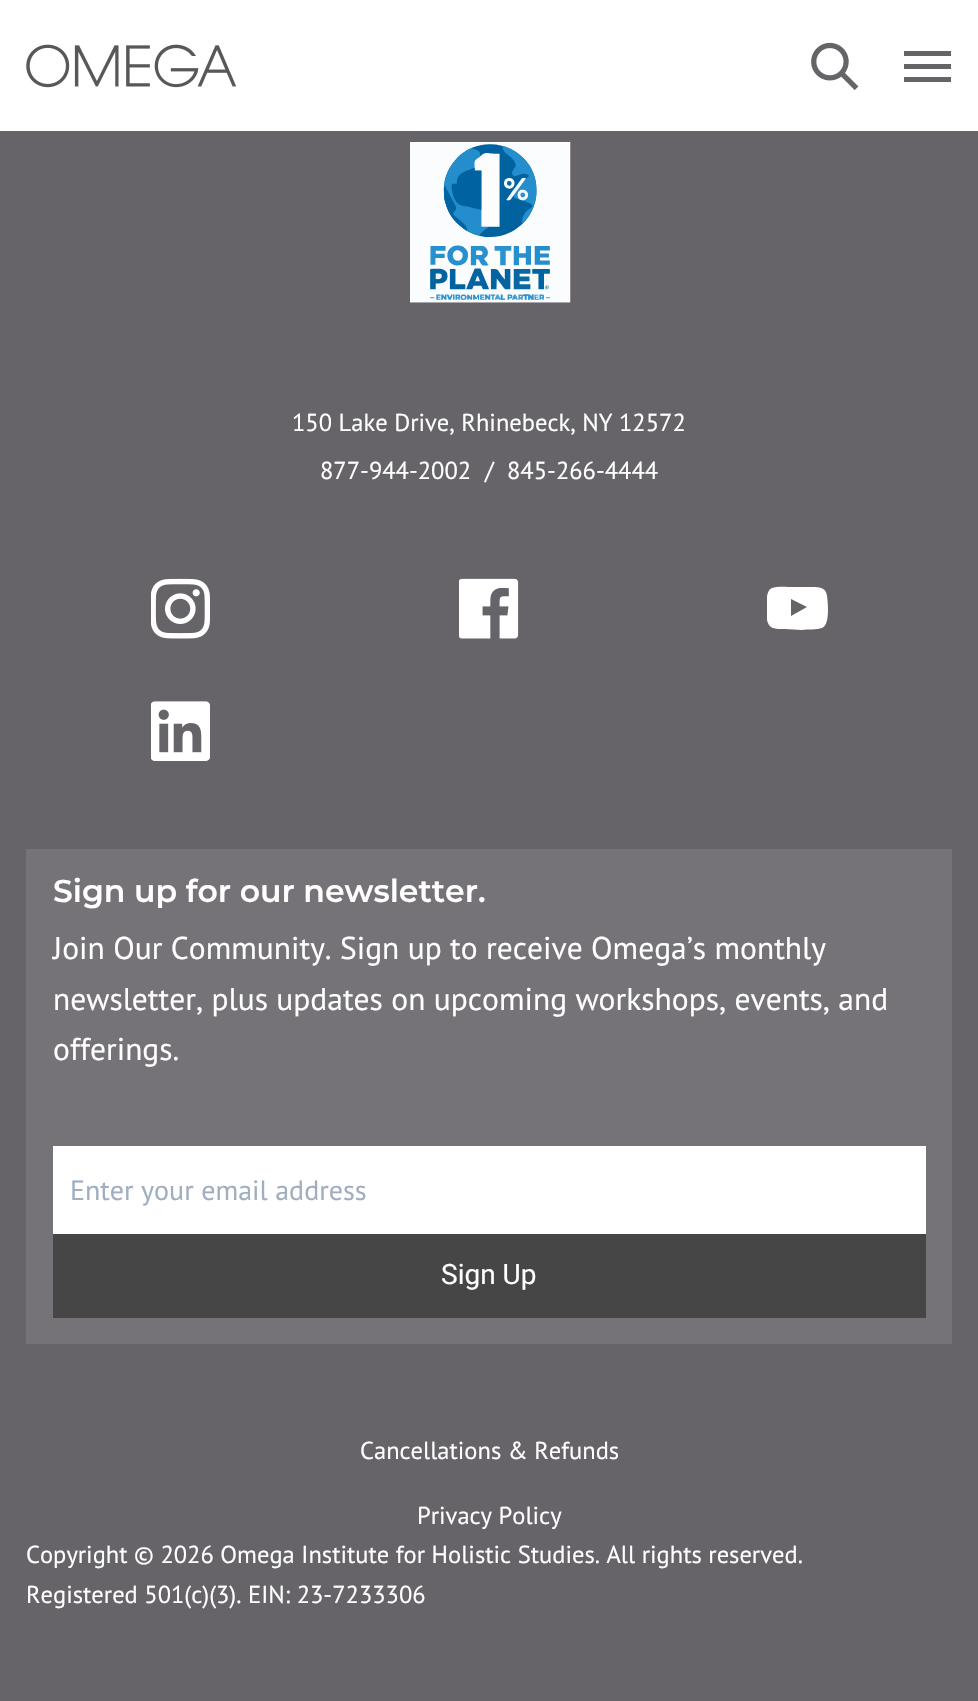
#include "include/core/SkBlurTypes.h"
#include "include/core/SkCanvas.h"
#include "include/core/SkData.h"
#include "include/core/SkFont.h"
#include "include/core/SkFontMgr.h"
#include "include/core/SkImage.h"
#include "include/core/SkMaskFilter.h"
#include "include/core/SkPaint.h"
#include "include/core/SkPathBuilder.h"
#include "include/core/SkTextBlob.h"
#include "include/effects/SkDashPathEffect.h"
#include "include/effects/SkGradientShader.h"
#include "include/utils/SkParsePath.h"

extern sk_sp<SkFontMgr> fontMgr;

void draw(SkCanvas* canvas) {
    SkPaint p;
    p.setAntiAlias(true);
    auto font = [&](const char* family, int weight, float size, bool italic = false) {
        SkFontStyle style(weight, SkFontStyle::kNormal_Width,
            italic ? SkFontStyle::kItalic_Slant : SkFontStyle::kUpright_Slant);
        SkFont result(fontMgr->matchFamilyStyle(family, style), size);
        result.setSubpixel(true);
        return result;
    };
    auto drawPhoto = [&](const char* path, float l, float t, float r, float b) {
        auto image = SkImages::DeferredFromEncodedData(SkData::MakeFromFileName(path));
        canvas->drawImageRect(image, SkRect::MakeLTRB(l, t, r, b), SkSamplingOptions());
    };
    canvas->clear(0xFF666469);
    p.setColor(0xFFFFFFFF);
    canvas->drawRect(SkRect::MakeLTRB(0, 0, 978, 131), p);
    drawPhoto("media/1.png", 26, 44, 236, 88);
    drawPhoto("media/2.png", 811, 42, 859, 90);
    p.setColor(0xFF666469);
    canvas->drawPath(SkPathBuilder().moveTo(904, 82).lineTo(951, 82).lineTo(951, 77).lineTo(904, 77).close().moveTo(904, 69).lineTo(951, 69).lineTo(951, 64).lineTo(904, 64).close().moveTo(904, 51).lineTo(904, 56).lineTo(951, 56).lineTo(951, 51).close().detach(), p);
    drawPhoto("media/3.png", 410, 142, 571, 303);
    auto font1 = font("PT Sans", 400, 24.5f);
    p.setColor(0xFFFFFFFF);
    {
        const struct { const char* s; float x, y; } items[] = {
            {"150 Lake Drive, Rhinebeck, NY 12572", 292, 431},
            {"877-944-2002", 320, 479},
            {"/", 485, 479},
            {"845-266-4444", 507, 479},
        };
        for (auto [s, x, y] : items) {
            canvas->drawString(s, x, y, font1, p);
        }
    }
    drawPhoto("media/4.png", 151, 578, 210, 639);
    drawPhoto("media/5.png", 459, 578, 519, 639);
    canvas->save();
    canvas->clipRect(SkRect::MakeLTRB(767, 586, 828, 630));
    canvas->drawPath(SkPathBuilder().moveTo(827, 596).cubicTo(826, 587, 819, 587, 812, 587).lineTo(793, 587).cubicTo(787, 587, 777, 586, 772, 588).cubicTo(764, 591, 766, 614, 767, 620).cubicTo(769, 630, 777, 629, 785, 629).lineTo(802, 630).cubicTo(807, 629, 817, 630, 822, 628).cubicTo(830, 625, 828, 603, 827, 596).close().moveTo(791, 616).lineTo(791, 599).lineTo(807, 607).close().detach(), p);
    canvas->restore();
    drawPhoto("media/6.png", 151, 701, 210, 761);
    p.setColor(0xFF757377);
    canvas->drawRect(SkRect::MakeLTRB(26, 849, 952, 1344), p);
    auto font2 = font("Montserrat", 600, 31.5f);
    p.setColor(0xFFFFFFFF);
    canvas->drawString("Sign up for our newsletter.", 53, 902, font2, p);
    auto font3 = font("PT Sans", 400, 31.5f);
    {
        const struct { const char* s; float x, y; } items[] = {
            {"Join Our Community. Sign up to receive Omega’s monthly", 53, 959},
            {"newsletter, plus updates on upcoming workshops, events, and", 53, 1010},
            {"offerings.", 53, 1060},
        };
        for (auto [s, x, y] : items) {
            canvas->drawString(s, x, y, font3, p);
        }
    }
    canvas->drawRect(SkRect::MakeLTRB(53, 1146, 926, 1234), p);
    auto font4 = font("PT Sans", 400, 28);
    p.setColor(0xFFA0AEC0);
    canvas->drawString("Enter your email address", 70, 1200, font4, p);
    p.setColor(0xFF464646);
    canvas->drawRect(SkRect::MakeLTRB(53, 1234, 926, 1318), p);
    auto font5 = font("Roboto", 400, 28);
    p.setColor(0xFFFFFFFF);
    canvas->drawString("Sign Up", 441, 1284, font5, p);
    {
        const struct { const char* s; float x, y; } items[] = {
            {"Cancellations & Refunds", 360, 1459},
            {"Privacy Policy", 417, 1524},
            {"Copyright © 2026 Omega Institute for Holistic Studies. All rights reserved.", 26, 1563},
            {"Registered 501(c)(3). EIN: 23-7233306", 26, 1603},
        };
        for (auto [s, x, y] : items) {
            canvas->drawString(s, x, y, font1, p);
        }
    }
}
